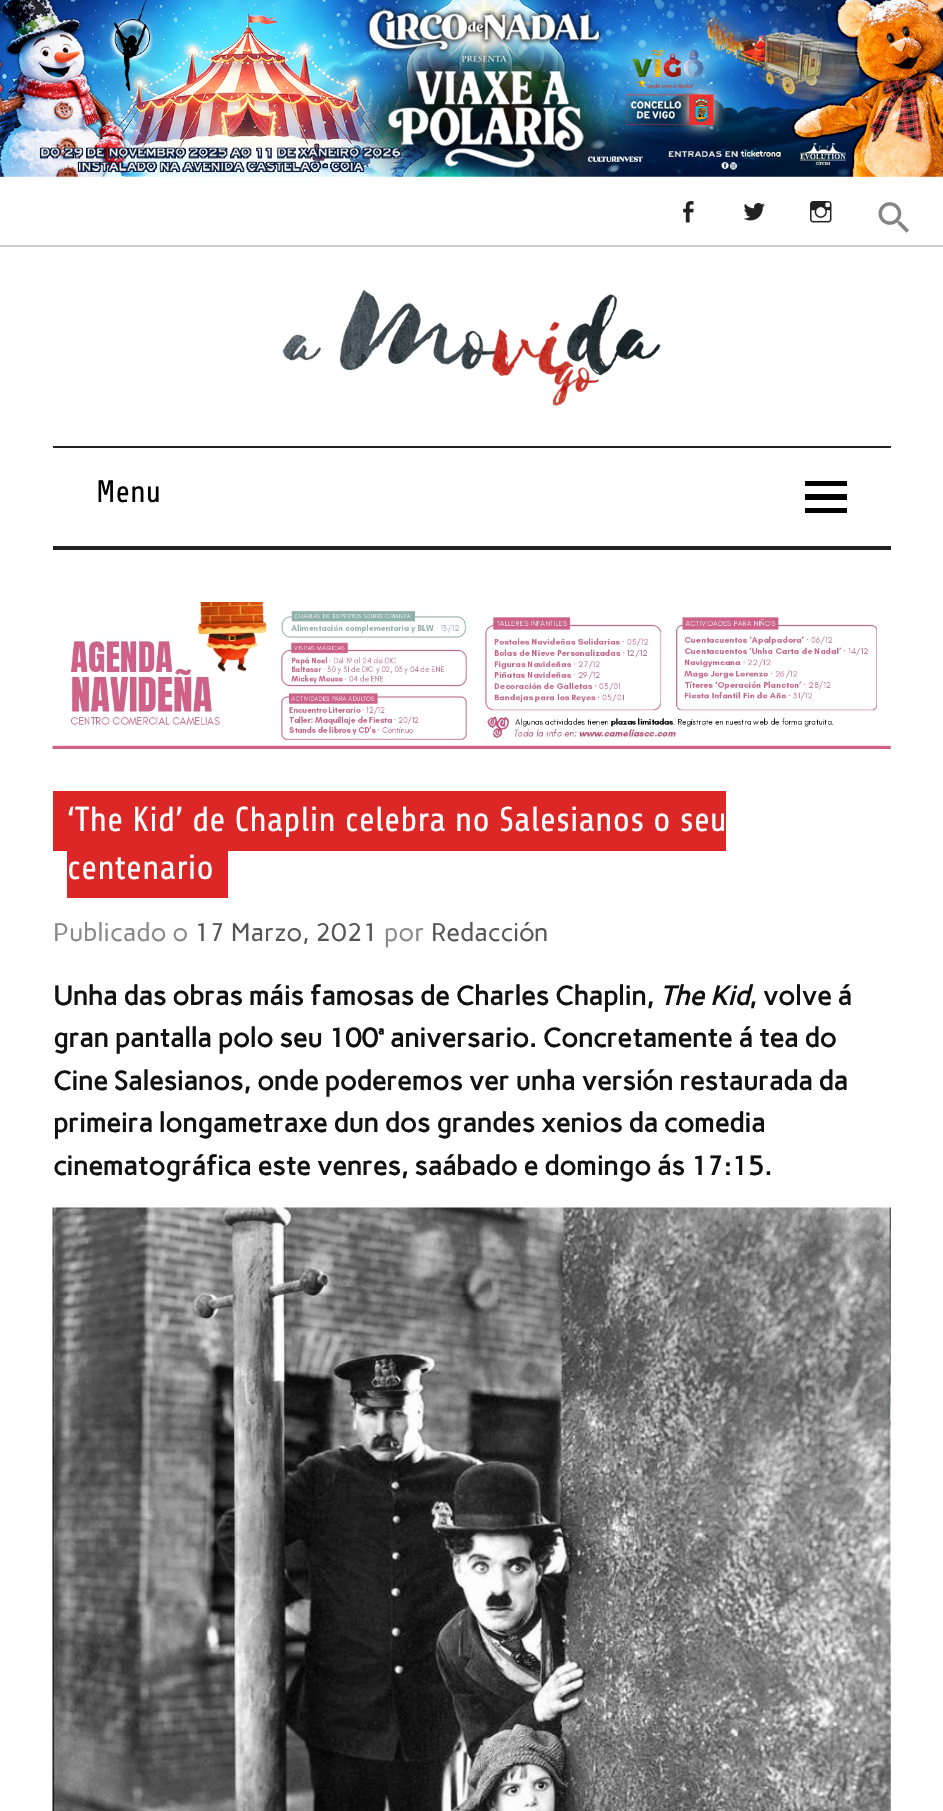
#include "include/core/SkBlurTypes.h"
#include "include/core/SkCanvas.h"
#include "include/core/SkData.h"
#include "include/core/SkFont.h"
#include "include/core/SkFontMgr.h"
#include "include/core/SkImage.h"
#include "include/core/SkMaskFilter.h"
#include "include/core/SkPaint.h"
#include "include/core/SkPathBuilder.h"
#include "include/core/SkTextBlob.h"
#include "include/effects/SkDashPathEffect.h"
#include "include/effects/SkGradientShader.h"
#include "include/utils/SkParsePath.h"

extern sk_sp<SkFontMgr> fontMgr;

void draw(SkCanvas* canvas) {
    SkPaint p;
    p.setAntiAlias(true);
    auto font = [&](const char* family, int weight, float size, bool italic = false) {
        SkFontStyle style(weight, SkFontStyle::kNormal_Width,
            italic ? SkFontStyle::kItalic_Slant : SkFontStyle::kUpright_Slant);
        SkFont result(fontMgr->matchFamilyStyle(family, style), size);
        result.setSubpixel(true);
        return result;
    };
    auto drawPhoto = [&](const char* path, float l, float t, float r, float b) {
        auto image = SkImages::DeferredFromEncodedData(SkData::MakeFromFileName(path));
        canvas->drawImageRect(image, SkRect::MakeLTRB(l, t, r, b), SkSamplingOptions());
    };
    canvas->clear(0xFFFFFFFF);
    drawPhoto("media/1.png", 0, 0, 943, 177);
    p.setColor(0xFFCCCCCC);
    canvas->drawRect(SkRect::MakeLTRB(0, 245, 943, 247), p);
    drawPhoto("media/2.png", 683, 201, 694, 223);
    drawPhoto("media/3.png", 743, 203, 765, 221);
    drawPhoto("media/4.png", 810, 201, 832, 223);
    drawPhoto("media/5.png", 878, 202, 909, 233);
    drawPhoto("media/6.png", 282, 290, 661, 407);
    p.setColor(0xFF222222);
    canvas->drawRect(SkRect::MakeLTRB(53, 446, 891, 448), p);
    canvas->drawRect(SkRect::MakeLTRB(53, 546, 891, 550), p);
    auto font1 = font("Share", 400, 31);
    p.setColor(0xFF000000);
    canvas->drawString("Menu", 96, 502, font1, p);
    canvas->drawPath(SkPathBuilder().moveTo(805, 513).lineTo(805, 508).lineTo(847, 508).lineTo(847, 513).close().moveTo(805, 481).lineTo(847, 481).lineTo(847, 486).lineTo(805, 486).close().moveTo(805, 500).lineTo(805, 494).lineTo(847, 494).lineTo(847, 500).close().detach(), p);
    drawPhoto("media/7.png", 52, 602, 891, 749);
    p.setColor(0xFFDD2727);
    canvas->drawRect(SkRect::MakeLTRB(53, 791, 726, 851), p);
    auto font2 = font("Share", 400, 34.6f);
    p.setColor(0xFFFFFFFF);
    canvas->drawString("‘The Kid’ de Chaplin celebra no Salesianos o seu", 67, 831, font2, p);
    p.setColor(0xFFDD2727);
    canvas->drawRect(SkRect::MakeLTRB(67, 851, 228, 898), p);
    p.setColor(0xFFFFFFFF);
    canvas->drawString("centenario", 67, 879, font2, p);
    auto font3 = font("Carme", 400, 25.25f);
    p.setColor(0xFF888888);
    canvas->drawString("Publicado o", 53, 941, font3, p);
    p.setColor(0xFF555555);
    canvas->drawString("17 Marzo, 2021", 194, 941, font3, p);
    p.setColor(0xFF888888);
    canvas->drawString("por", 384, 941, font3, p);
    p.setColor(0xFF555555);
    canvas->drawString("Redacción", 431, 941, font3, p);
    auto font4 = font("Carme", 700, 26.6f);
    p.setColor(0xFF111111);
    canvas->drawString("Unha das obras máis famosas de Charles Chaplin,", 53, 1005, font4, p);
    auto font5 = font("Carme", 700, 26.6f, true);
    canvas->drawString("The Kid", 660, 1005, font5, p);
    {
        const struct { const char* s; float x, y; } items[] = {
            {", volve á", 749, 1005},
            {"gran pantalla polo seu 100ª aniversario. Concretamente á tea do", 53, 1047},
            {"Cine Salesianos, onde poderemos ver unha versión restaurada da", 53, 1090},
            {"primeira longametraxe dun dos grandes xenios da comedia", 53, 1132},
            {"cinematográfica este venres, saábado e domingo ás 17:15.", 53, 1175},
        };
        for (auto [s, x, y] : items) {
            canvas->drawString(s, x, y, font4, p);
        }
    }
    drawPhoto("media/8.png", 52, 1207, 891, 1811);
}
